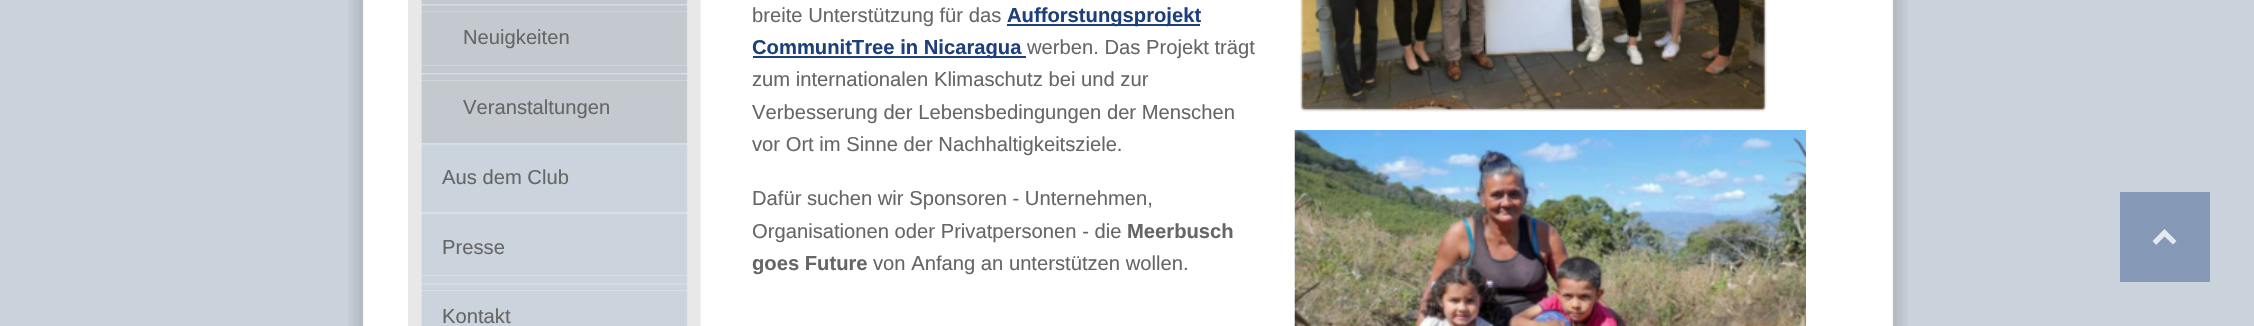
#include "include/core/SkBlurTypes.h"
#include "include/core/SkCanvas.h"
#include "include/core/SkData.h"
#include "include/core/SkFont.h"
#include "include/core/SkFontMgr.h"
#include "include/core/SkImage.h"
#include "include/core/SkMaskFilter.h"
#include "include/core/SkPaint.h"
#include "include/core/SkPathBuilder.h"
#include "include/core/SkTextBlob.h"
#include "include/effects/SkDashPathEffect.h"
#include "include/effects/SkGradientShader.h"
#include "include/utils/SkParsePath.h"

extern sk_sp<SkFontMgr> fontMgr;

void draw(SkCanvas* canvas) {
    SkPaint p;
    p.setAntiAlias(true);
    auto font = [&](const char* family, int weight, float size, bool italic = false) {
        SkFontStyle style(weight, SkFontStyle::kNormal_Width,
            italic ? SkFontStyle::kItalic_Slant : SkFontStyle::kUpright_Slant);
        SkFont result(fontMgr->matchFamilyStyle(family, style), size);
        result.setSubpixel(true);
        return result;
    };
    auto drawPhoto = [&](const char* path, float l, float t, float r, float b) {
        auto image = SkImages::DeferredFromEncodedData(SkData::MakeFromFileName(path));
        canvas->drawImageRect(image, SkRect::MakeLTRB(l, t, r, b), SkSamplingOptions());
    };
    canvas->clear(0xFFCAD2DB);
    drawPhoto("media/1.png", 348, 0, 1908, 326);
    drawPhoto("media/2.png", 408, 0, 701, 4);
    drawPhoto("media/3.png", 408, 4, 701, 12);
    drawPhoto("media/4.png", 408, 11, 701, 66);
    auto font1 = font("Liberation Sans", 400, 20.2f);
    p.setColor(0xFF666666);
    canvas->drawString("Neuigkeiten", 463, 44, font1, p);
    drawPhoto("media/5.png", 408, 65, 701, 73);
    drawPhoto("media/3.png", 408, 73, 701, 81);
    drawPhoto("media/6.png", 408, 80, 701, 136);
    canvas->drawString("Veranstaltungen", 463, 114, font1, p);
    drawPhoto("media/7.png", 408, 136, 701, 144);
    drawPhoto("media/8.png", 408, 143, 701, 151);
    drawPhoto("media/9.png", 408, 151, 701, 205);
    canvas->drawString("Aus dem Club", 442, 184, font1, p);
    drawPhoto("media/10.png", 408, 205, 701, 213);
    drawPhoto("media/11.png", 408, 212, 701, 220);
    drawPhoto("media/12.png", 408, 220, 701, 276);
    canvas->drawString("Presse", 442, 254, font1, p);
    drawPhoto("media/13.png", 408, 275, 701, 283);
    drawPhoto("media/14.png", 408, 283, 701, 291);
    drawPhoto("media/15.png", 408, 290, 701, 326);
    canvas->drawString("Kontakt", 442, 323, font1, p);
    canvas->drawString("breite Unterstützung für das", 752, 22, font1, p);
    p.setColor(0xFF1D3F7E);
    canvas->drawRect(SkRect::MakeLTRB(1007, 24, 1200, 26), p);
    auto font2 = font("Liberation Sans", 700, 20.2f);
    canvas->drawString("Aufforstungsprojekt", 1007, 22, font2, p);
    canvas->drawRect(SkRect::MakeLTRB(753, 56, 1026, 58), p);
    canvas->drawString("CommunitTree in Nicaragua", 752, 54, font2, p);
    p.setColor(0xFF666666);
    {
        const struct { const char* s; float x, y; } items[] = {
            {"werben. Das Projekt trägt", 1027, 54},
            {"zum internationalen Klimaschutz bei und zur", 752, 86},
            {"Verbesserung der Lebensbedingungen der Menschen", 752, 119},
            {"vor Ort im Sinne der Nachhaltigkeitsziele.", 752, 151},
            {"Dafür suchen wir Sponsoren - Unternehmen,", 752, 205},
            {"Organisationen oder Privatpersonen - die", 752, 238},
        };
        for (auto [s, x, y] : items) {
            canvas->drawString(s, x, y, font1, p);
        }
    }
    canvas->drawString("Meerbusch", 1127, 238, font2, p);
    canvas->drawString("goes Future", 752, 270, font2, p);
    canvas->drawString("von Anfang an unterstützen wollen.", 873, 270, font1, p);
    drawPhoto("media/16.png", 1300, 0, 1767, 112);
    drawPhoto("media/17.png", 1294, 130, 1806, 326);
    p.setColor(0xFF8598B6);
    canvas->drawRect(SkRect::MakeLTRB(2120, 192, 2210, 282), p);
    p.setColor(0xFFE5E9ED);
    canvas->drawPath(SkPathBuilder().moveTo(2164.5f, 229).lineTo(2176.5f, 241).lineTo(2173, 244.5f).lineTo(2164.5f, 236.5f).lineTo(2156, 245).lineTo(2152.5f, 241).close().detach(), p);
}
